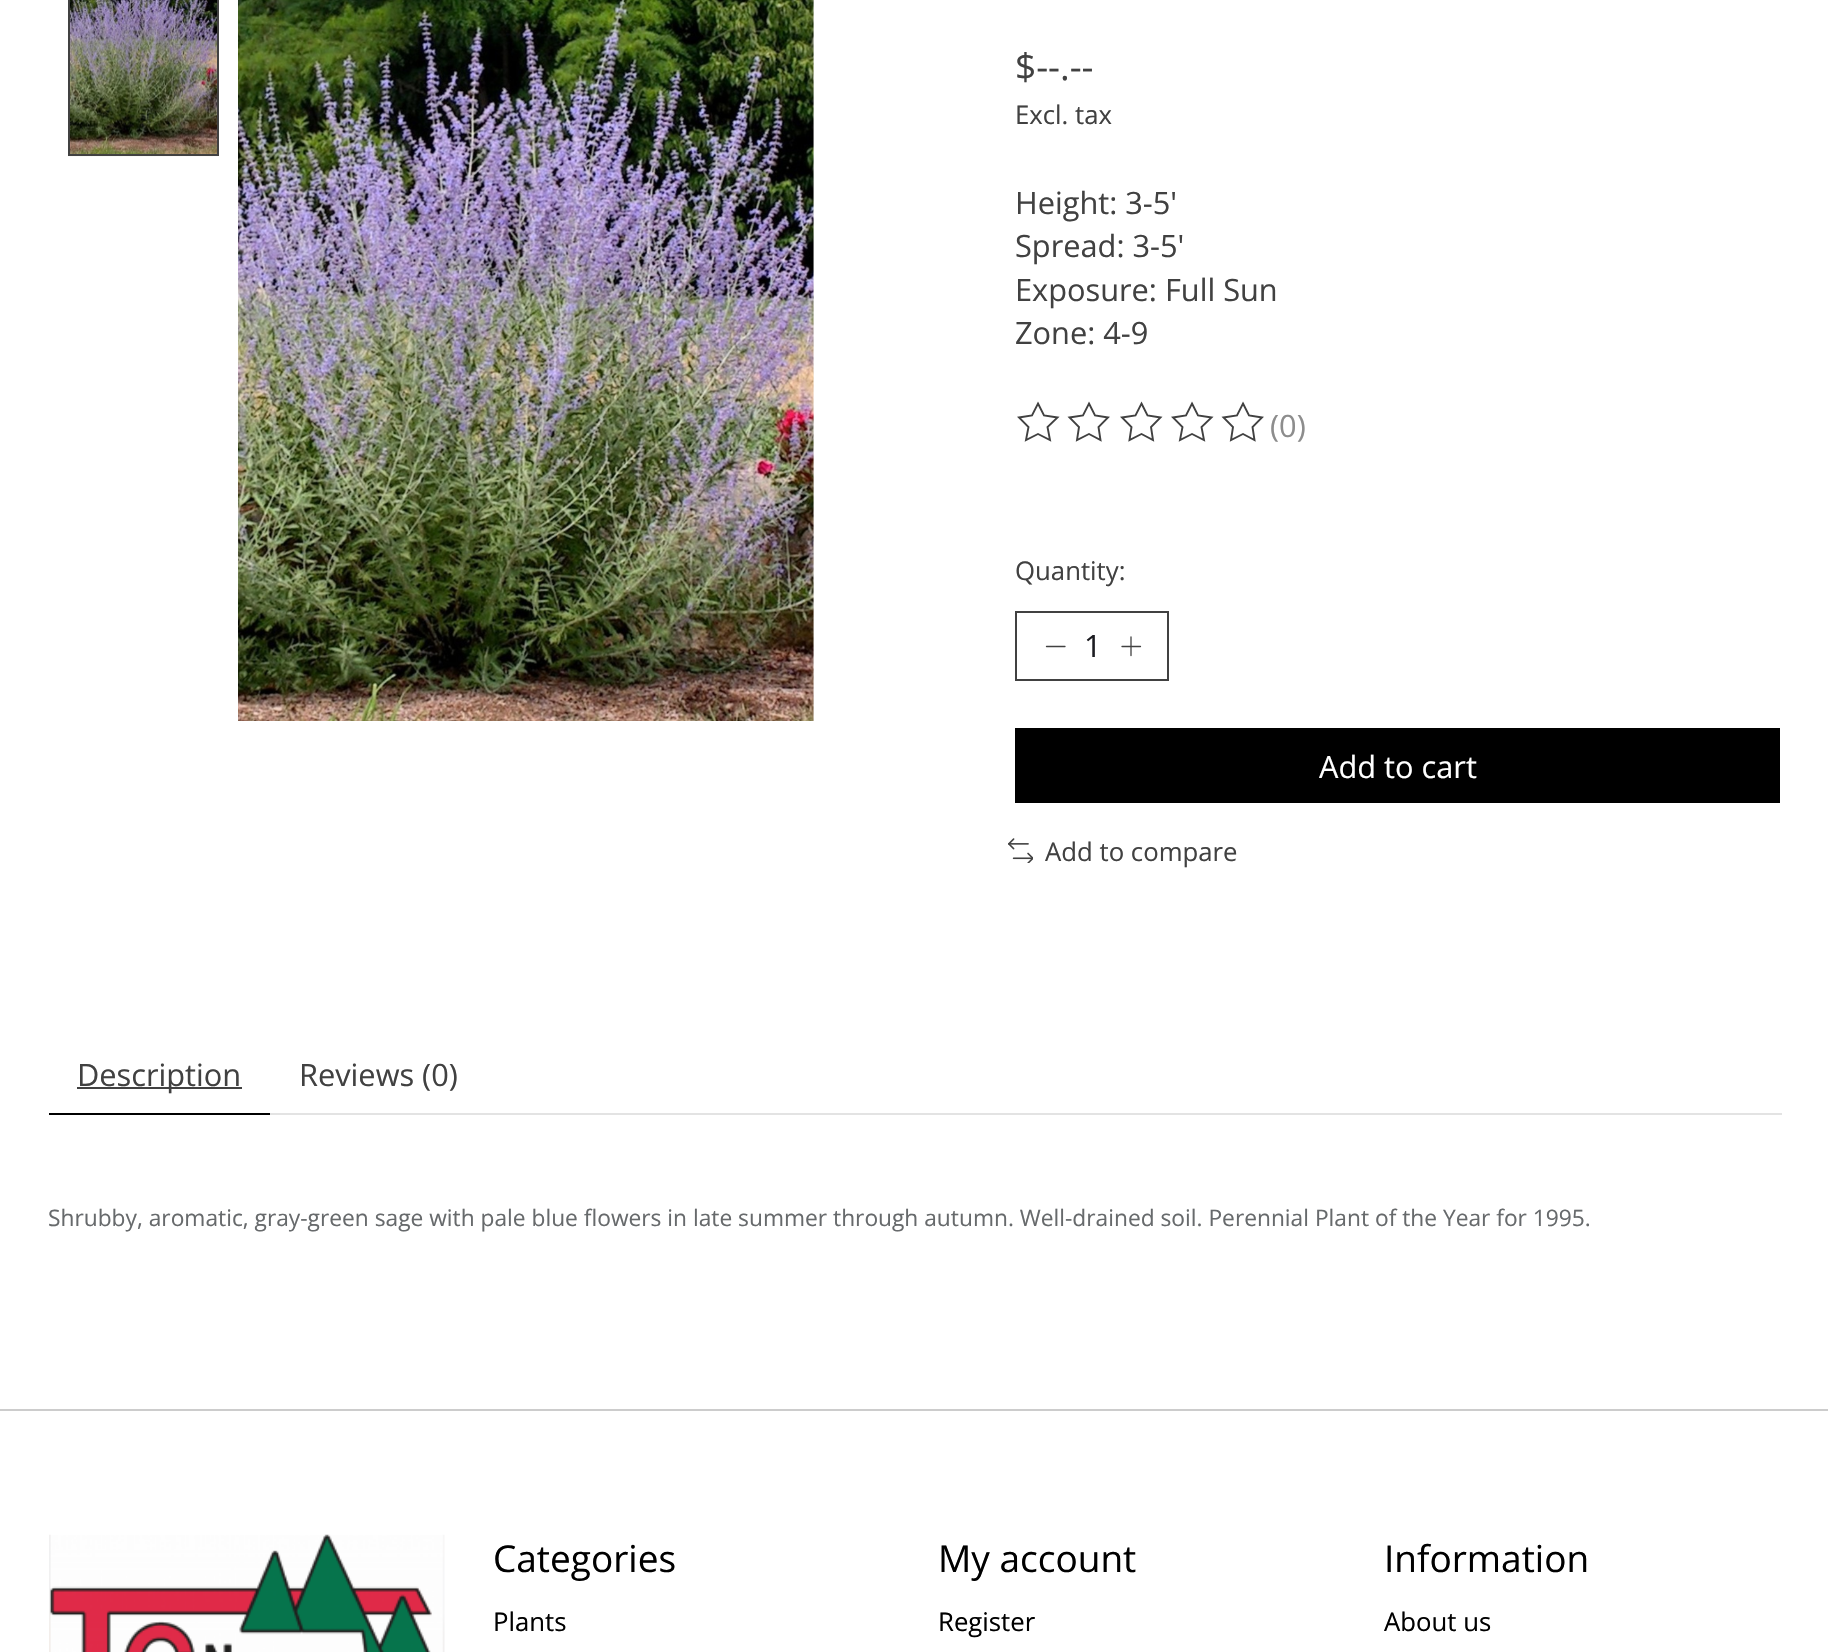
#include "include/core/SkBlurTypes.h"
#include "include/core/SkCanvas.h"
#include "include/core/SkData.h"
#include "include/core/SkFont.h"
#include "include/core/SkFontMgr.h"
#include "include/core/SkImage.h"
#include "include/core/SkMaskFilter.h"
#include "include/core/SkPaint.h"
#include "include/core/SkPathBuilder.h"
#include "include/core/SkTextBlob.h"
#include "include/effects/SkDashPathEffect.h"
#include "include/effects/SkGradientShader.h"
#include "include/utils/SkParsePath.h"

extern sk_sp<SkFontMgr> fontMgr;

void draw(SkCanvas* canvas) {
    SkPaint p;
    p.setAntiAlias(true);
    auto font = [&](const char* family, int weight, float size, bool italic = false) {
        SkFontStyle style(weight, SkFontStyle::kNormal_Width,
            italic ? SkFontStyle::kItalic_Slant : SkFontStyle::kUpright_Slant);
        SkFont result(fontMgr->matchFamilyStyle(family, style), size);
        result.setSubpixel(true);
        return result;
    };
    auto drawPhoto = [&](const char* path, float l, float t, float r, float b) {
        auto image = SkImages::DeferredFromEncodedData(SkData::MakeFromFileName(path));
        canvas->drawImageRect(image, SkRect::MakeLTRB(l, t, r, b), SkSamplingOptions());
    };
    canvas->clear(0xFFFFFFFF);
    drawPhoto("media/1.png", 68, 0, 219, 157);
    p.setStyle(SkPaint::kStroke_Style);
    p.setStrokeWidth(2);
    p.setColor(0xFF414141);
    canvas->drawRect(SkRect::MakeLTRB(69, -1, 218, 155), p);
    drawPhoto("media/2.png", 238, 0, 814, 721);
    auto font1 = font("Open Sans", 400, 37);
    p.setStyle(SkPaint::kFill_Style);
    canvas->drawString("$--.--", 1015, 80, font1, p);
    auto font2 = font("Open Sans", 400, 25.75f);
    canvas->drawString("Excl. tax", 1015, 124, font2, p);
    auto font3 = font("Open Sans", 400, 30.75f);
    {
        const struct { const char* s; float x, y; } items[] = {
            {"Height: 3-5'", 1015, 214},
            {"Spread: 3-5'", 1015, 257},
            {"Exposure: Full Sun", 1015, 301},
            {"Zone: 4-9", 1015, 344},
        };
        for (auto [s, x, y] : items) {
            canvas->drawString(s, x, y, font3, p);
        }
    }
    p.setStyle(SkPaint::kStroke_Style);
    p.setStrokeWidth(1.9f);
    canvas->drawPath(SkPathBuilder().moveTo(1038, 403.5f).lineTo(1044, 415.5f).lineTo(1057.5f, 417.5f).lineTo(1047.5f, 427).lineTo(1050, 440).lineTo(1038, 434).lineTo(1026, 440).lineTo(1028.5f, 427).lineTo(1019, 417.5f).lineTo(1032, 415.5f).close().detach(), p);
    canvas->drawPath(SkPathBuilder().moveTo(1089, 403.5f).lineTo(1095, 415.5f).lineTo(1108, 417.5f).lineTo(1098.5f, 427).lineTo(1100.5f, 440).lineTo(1089, 434).lineTo(1077, 440).lineTo(1079, 427).lineTo(1069.5f, 417.5f).lineTo(1083, 415.5f).close().detach(), p);
    canvas->drawPath(SkPathBuilder().moveTo(1141.5f, 403.5f).lineTo(1147.5f, 415.5f).lineTo(1160.5f, 417.5f).lineTo(1151, 427).lineTo(1153, 440).lineTo(1141.5f, 434).lineTo(1129.5f, 440).lineTo(1131.5f, 427).lineTo(1122, 417.5f).lineTo(1135.5f, 415.5f).close().detach(), p);
    canvas->drawPath(SkPathBuilder().moveTo(1192, 403.5f).lineTo(1198, 415.5f).lineTo(1211.5f, 417.5f).lineTo(1201.5f, 427).lineTo(1204, 440).lineTo(1192, 434).lineTo(1180, 440).lineTo(1182.5f, 427).lineTo(1173, 417.5f).lineTo(1186, 415.5f).close().detach(), p);
    canvas->drawPath(SkPathBuilder().moveTo(1243, 403.5f).lineTo(1249, 415.5f).lineTo(1262, 417.5f).lineTo(1252.5f, 427).lineTo(1254.5f, 440).lineTo(1243, 434).lineTo(1231, 440).lineTo(1233, 427).lineTo(1223.5f, 417.5f).lineTo(1237, 415.5f).close().detach(), p);
    p.setStyle(SkPaint::kFill_Style);
    p.setColor(0xFF8D8D8D);
    canvas->drawString("(0)", 1270, 437, font3, p);
    p.setColor(0xFF414141);
    canvas->drawString("Quantity:", 1015, 580, font2, p);
    p.setStyle(SkPaint::kStroke_Style);
    p.setStrokeWidth(2);
    canvas->drawRect(SkRect::MakeLTRB(1016, 612, 1168, 680), p);
    p.setStrokeWidth(1.3f);
    p.setStrokeCap(SkPaint::kRound_Cap);
    p.setStrokeJoin(SkPaint::kRound_Join);
    canvas->drawPath(SkPathBuilder().moveTo(1046.5f, 646.5f).lineTo(1065, 646.5f).detach(), p);
    p.setStyle(SkPaint::kFill_Style);
    p.setColor(0xFF1C1C21);
    canvas->drawString("1", 1084, 657, font3, p);
    p.setStyle(SkPaint::kStroke_Style);
    p.setColor(0xFF414141);
    canvas->drawPath(SkPathBuilder().moveTo(1131, 637).lineTo(1131, 655.5f).moveTo(1122, 646.5f).lineTo(1140.5f, 646.5f).detach(), p);
    p.setStyle(SkPaint::kFill_Style);
    p.setColor(0xFF000000);
    canvas->drawRect(SkRect::MakeLTRB(1015, 728, 1780, 803), p);
    p.setColor(0xFFFFFFFF);
    canvas->drawString("Add to cart", 1319, 778, font3, p);
    drawPhoto("media/3.png", 1008, 838, 1033, 863);
    p.setColor(0xFF414141);
    canvas->drawString("Add to compare", 1045, 861, font2, p);
    p.setColor(0xFF000000);
    canvas->drawRect(SkRect::MakeLTRB(49, 1113, 270, 1115), p);
    p.setColor(0xFF414141);
    canvas->drawRect(SkRect::MakeLTRB(77, 1087, 242, 1089), p);
    canvas->drawString("Description", 77, 1086, font3, p);
    canvas->drawString("Reviews (0)", 299, 1086, font3, p);
    p.setColor(0xFFE3E3E3);
    canvas->drawRect(SkRect::MakeLTRB(270, 1113, 1782, 1115), p);
    auto font4 = font("Open Sans", 400, 22.75f);
    p.setColor(0xFF676A6C);
    canvas->drawString("Shrubby, aromatic, gray-green sage with pale blue flowers in late summer through autumn. Well-drained soil. Perennial Plant of the Year for 1995.", 48, 1226, font4, p);
    p.setColor(0xFFCCCCCC);
    canvas->drawRect(SkRect::MakeLTRB(0, 1409, 1828, 1411), p);
    drawPhoto("media/4.png", 49, 1534, 445, 1652);
    p.setColor(0xFF000000);
    canvas->drawString("Categories", 493, 1572, font1, p);
    canvas->drawString("Plants", 493, 1631, font2, p);
    canvas->drawString("My account", 938, 1572, font1, p);
    canvas->drawString("Register", 938, 1631, font2, p);
    canvas->drawString("Information", 1384, 1572, font1, p);
    canvas->drawString("About us", 1384, 1631, font2, p);
}
